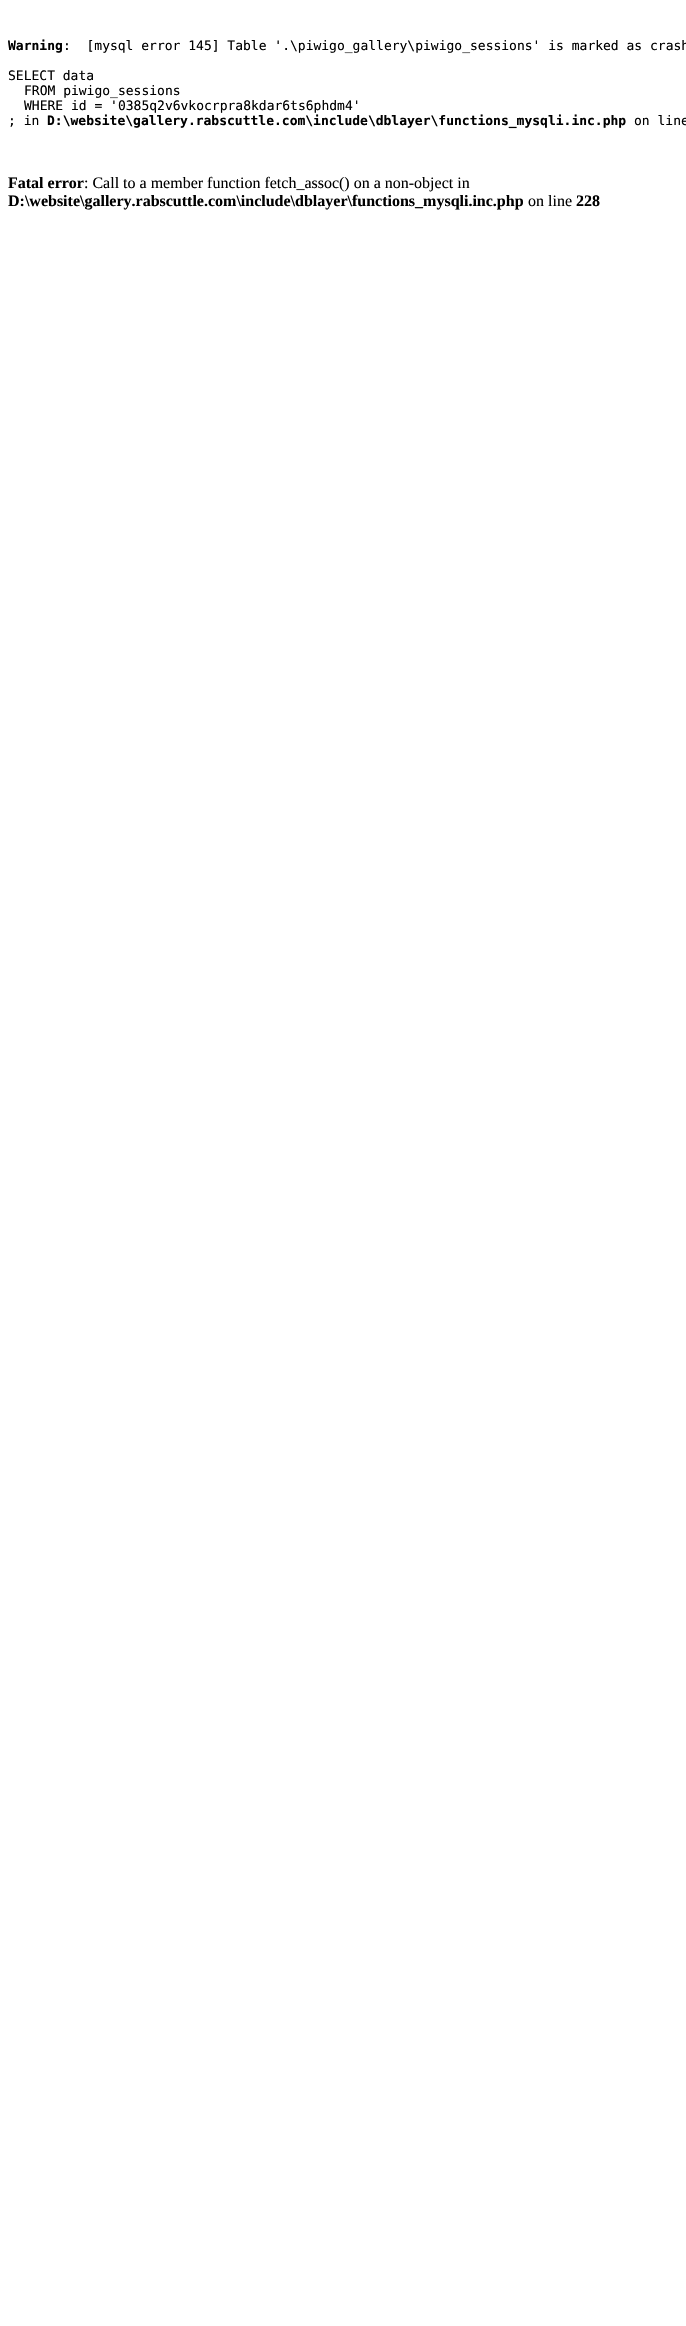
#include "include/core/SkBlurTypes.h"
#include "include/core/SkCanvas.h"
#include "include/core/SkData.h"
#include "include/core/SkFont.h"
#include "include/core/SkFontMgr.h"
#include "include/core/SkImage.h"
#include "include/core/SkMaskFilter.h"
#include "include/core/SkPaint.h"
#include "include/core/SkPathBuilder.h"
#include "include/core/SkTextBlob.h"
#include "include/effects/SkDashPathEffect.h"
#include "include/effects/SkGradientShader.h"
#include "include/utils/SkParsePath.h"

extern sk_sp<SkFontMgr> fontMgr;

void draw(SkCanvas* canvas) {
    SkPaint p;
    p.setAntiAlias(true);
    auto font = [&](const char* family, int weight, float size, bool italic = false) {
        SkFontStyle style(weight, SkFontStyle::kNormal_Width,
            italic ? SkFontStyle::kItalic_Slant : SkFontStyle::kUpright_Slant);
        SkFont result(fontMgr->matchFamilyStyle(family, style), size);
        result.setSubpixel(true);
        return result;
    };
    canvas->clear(0xFFFFFFFF);
    auto font1 = font("DejaVu Sans Mono", 700, 13);
    p.setColor(0xFF000000);
    canvas->drawString("Warning", 8, 50, font1, p);
    auto font2 = font("DejaVu Sans Mono", 400, 13);
    {
        const struct { const char* s; float x, y; } items[] = {
            {":  [mysql error 145] Table '.\\piwigo_gallery\\piwigo_sessions' is marked as crash", 63, 50},
            {"SELECT data", 8, 80},
            {"FROM piwigo_sessions", 24, 95},
            {"WHERE id = '0385q2v6vkocrpra8kdar6ts6phdm4'", 24, 110},
            {"; in", 8, 125},
        };
        for (auto [s, x, y] : items) {
            canvas->drawString(s, x, y, font2, p);
        }
    }
    canvas->drawString("D:\\website\\gallery.rabscuttle.com\\include\\dblayer\\functions_mysqli.inc.php", 47, 125, font1, p);
    canvas->drawString("on line", 634, 125, font2, p);
    auto font3 = font("Liberation Serif", 700, 16);
    canvas->drawString("Fatal error", 8, 188, font3, p);
    auto font4 = font("Liberation Serif", 400, 16);
    canvas->drawString(": Call to a member function fetch_assoc() on a non-object in", 84, 188, font4, p);
    canvas->drawString("D:\\website\\gallery.rabscuttle.com\\include\\dblayer\\functions_mysqli.inc.php", 8, 206, font3, p);
    canvas->drawString("on line", 528, 206, font4, p);
    canvas->drawString("228", 576, 206, font3, p);
}
